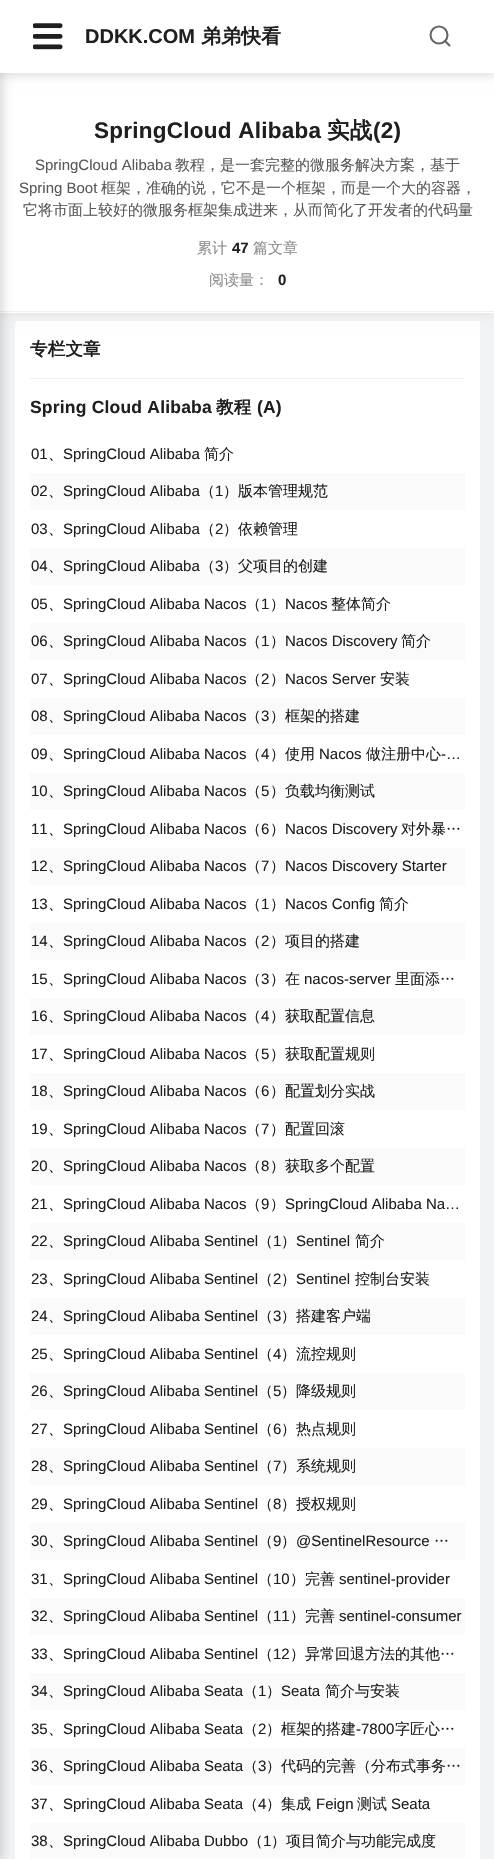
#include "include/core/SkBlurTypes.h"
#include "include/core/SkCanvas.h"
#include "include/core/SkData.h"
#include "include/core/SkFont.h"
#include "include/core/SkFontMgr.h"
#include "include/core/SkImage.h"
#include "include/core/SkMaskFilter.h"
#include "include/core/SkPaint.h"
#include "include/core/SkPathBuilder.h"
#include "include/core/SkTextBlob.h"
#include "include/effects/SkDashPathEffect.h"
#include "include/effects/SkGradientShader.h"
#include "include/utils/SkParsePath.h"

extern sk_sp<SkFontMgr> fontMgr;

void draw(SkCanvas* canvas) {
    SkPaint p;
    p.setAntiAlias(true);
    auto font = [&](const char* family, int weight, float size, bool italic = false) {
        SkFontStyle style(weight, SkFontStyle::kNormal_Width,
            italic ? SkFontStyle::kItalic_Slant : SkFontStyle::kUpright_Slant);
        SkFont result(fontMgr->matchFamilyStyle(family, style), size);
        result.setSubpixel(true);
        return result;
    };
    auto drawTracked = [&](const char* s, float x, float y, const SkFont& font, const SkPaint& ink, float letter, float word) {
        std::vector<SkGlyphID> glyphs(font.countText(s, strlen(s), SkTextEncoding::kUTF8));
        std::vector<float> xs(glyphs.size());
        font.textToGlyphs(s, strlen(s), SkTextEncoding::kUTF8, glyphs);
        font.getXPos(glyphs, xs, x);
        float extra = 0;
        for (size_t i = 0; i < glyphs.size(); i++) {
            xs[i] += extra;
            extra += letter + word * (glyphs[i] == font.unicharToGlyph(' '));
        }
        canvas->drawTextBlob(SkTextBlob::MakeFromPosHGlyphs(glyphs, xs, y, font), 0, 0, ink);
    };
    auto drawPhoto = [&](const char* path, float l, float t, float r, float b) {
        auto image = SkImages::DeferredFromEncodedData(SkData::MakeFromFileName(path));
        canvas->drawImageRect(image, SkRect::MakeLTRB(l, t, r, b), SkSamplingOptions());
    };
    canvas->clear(0xFFF2F3F5);
    p.setColor(0xFFFFFFFF);
    canvas->drawRoundRect(SkRect::MakeLTRB(15, 321, 480, 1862), 2.5f, 2.5f, p);
    p.setColor(0x0F000000);
    p.setMaskFilter(SkMaskFilter::MakeBlur(kNormal_SkBlurStyle, 5));
    canvas->drawRect(SkRect::MakeLTRB(0, 98, 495, 315), p);
    p.setMaskFilter(nullptr);
    p.setColor(0xFFFFFFFF);
    canvas->drawRect(SkRect::MakeLTRB(0, 73, 494, 313), p);
    p.setColor(0xFFF0F0F0);
    canvas->drawRect(SkRect::MakeLTRB(0, 311, 494, 312), p);
    p.setColor(0x26000000);
    p.setMaskFilter(SkMaskFilter::MakeBlur(kNormal_SkBlurStyle, 5));
    canvas->drawRect(SkRect::MakeLTRB(-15, 0, 3, 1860), p);
    p.setMaskFilter(nullptr);
    p.setMaskFilter(SkMaskFilter::MakeBlur(kNormal_SkBlurStyle, 5));
    canvas->drawRect(SkRect::MakeLTRB(0, 3, 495, 75), p);
    p.setMaskFilter(nullptr);
    p.setColor(0xFFFFFFFF);
    canvas->drawRect(SkRect::MakeLTRB(0, 0, 494, 73), p);
    drawPhoto("media/1.png", 33, 23, 63, 50);
    auto font1 = font("Liberation Sans", 700, 20);
    p.setColor(0xFF1F1F1F);
    canvas->drawString("DDKK.COM", 85, 43, font1, p);
    auto font2 = font("WenQuanYi Zen Hei", 700, 20);
    canvas->drawString("弟弟快看", 201, 43, font2, p);
    p.setStyle(SkPaint::kStroke_Style);
    p.setStrokeWidth(2.1f);
    p.setColor(0xFF666666);
    canvas->drawCircle(439, 35, 8.5f, p);
    p.setStrokeCap(SkPaint::kRound_Cap);
    p.setStrokeJoin(SkPaint::kRound_Join);
    canvas->drawPath(SkPathBuilder().moveTo(449.5f, 45.5f).lineTo(445, 41).detach(), p);
    auto font3 = font("Liberation Sans", 700, 22.5f);
    p.setStyle(SkPaint::kFill_Style);
    p.setColor(0xFF1F1F1F);
    drawTracked("SpringCloud Alibaba", 94, 138, font3, p, 0.25f, 0);
    auto font4 = font("WenQuanYi Zen Hei", 700, 22.5f);
    drawTracked("实战", 327, 138, font4, p, 0.25f, 0);
    drawTracked("(2)", 373, 138, font3, p, 0.25f, 0);
    auto font5 = font("Liberation Sans", 400, 15);
    p.setColor(0xFF595959);
    canvas->drawString("SpringCloud Alibaba", 35, 170, font5, p);
    auto font6 = font("WenQuanYi Zen Hei", 500, 15);
    canvas->drawString("教程，是一套完整的微服务解决方案，基于", 175, 170, font6, p);
    canvas->drawString("Spring Boot", 19, 193, font5, p);
    canvas->drawString("框架，准确的说，它不是一个框架，而是一个大的容器，", 101, 193, font6, p);
    canvas->drawString("它将市面上较好的微服务框架集成进来，从而简化了开发者的代码量", 23, 215, font6, p);
    p.setColor(0xFF8C8C8C);
    canvas->drawString("累计", 197, 253, font6, p);
    auto font7 = font("Liberation Sans", 700, 15);
    p.setColor(0xFF1F1F1F);
    canvas->drawString("47", 232, 253, font7, p);
    p.setColor(0xFF8C8C8C);
    canvas->drawString("篇文章", 253, 253, font6, p);
    canvas->drawString("阅读量：", 209, 285, font6, p);
    p.setColor(0xFF1F1F1F);
    canvas->drawString("0", 278, 285, font7, p);
    auto font8 = font("WenQuanYi Zen Hei", 700, 17.5f);
    drawTracked("专栏文章", 30, 355, font8, p, 0.2f, 0);
    p.setColor(0xFFF0F0F0);
    canvas->drawRect(SkRect::MakeLTRB(30, 378, 465, 379), p);
    auto font9 = font("Liberation Sans", 700, 17.5f);
    p.setColor(0xFF1F1F1F);
    drawTracked("Spring Cloud Alibaba", 30, 413, font9, p, 0.2f, 0);
    drawTracked("教程", 216, 413, font8, p, 0.2f, 0);
    drawTracked("(A)", 257, 413, font9, p, 0.2f, 0);
    canvas->drawString("01", 31, 459, font5, p);
    canvas->drawString("、", 48, 459, font6, p);
    canvas->drawString("SpringCloud Alibaba", 63, 459, font5, p);
    canvas->drawString("简介", 204, 459, font6, p);
    p.setColor(0xFFFAFAFA);
    canvas->drawRect(SkRect::MakeLTRB(30, 473, 465, 510), p);
    p.setColor(0xFF1F1F1F);
    canvas->drawString("02", 31, 496, font5, p);
    canvas->drawString("、", 48, 496, font6, p);
    canvas->drawString("SpringCloud Alibaba", 63, 496, font5, p);
    canvas->drawString("（", 200, 496, font6, p);
    canvas->drawString("1", 215, 496, font5, p);
    canvas->drawString("）版本管理规范", 223, 496, font6, p);
    canvas->drawString("03", 31, 534, font5, p);
    canvas->drawString("、", 48, 534, font6, p);
    canvas->drawString("SpringCloud Alibaba", 63, 534, font5, p);
    canvas->drawString("（", 200, 534, font6, p);
    canvas->drawString("2", 215, 534, font5, p);
    canvas->drawString("）依赖管理", 223, 534, font6, p);
    p.setColor(0xFFFAFAFA);
    canvas->drawRect(SkRect::MakeLTRB(30, 548, 465, 585), p);
    p.setColor(0xFF1F1F1F);
    canvas->drawString("04", 31, 571, font5, p);
    canvas->drawString("、", 48, 571, font6, p);
    canvas->drawString("SpringCloud Alibaba", 63, 571, font5, p);
    canvas->drawString("（", 200, 571, font6, p);
    canvas->drawString("3", 215, 571, font5, p);
    canvas->drawString("）父项目的创建", 223, 571, font6, p);
    canvas->drawString("05", 31, 609, font5, p);
    canvas->drawString("、", 48, 609, font6, p);
    canvas->drawString("SpringCloud Alibaba Nacos", 63, 609, font5, p);
    canvas->drawString("（", 246, 609, font6, p);
    canvas->drawString("1", 261, 609, font5, p);
    canvas->drawString("）", 270, 609, font6, p);
    canvas->drawString("Nacos", 285, 609, font5, p);
    canvas->drawString("整体简介", 331, 609, font6, p);
    p.setColor(0xFFFAFAFA);
    canvas->drawRect(SkRect::MakeLTRB(30, 623, 465, 660), p);
    p.setColor(0xFF1F1F1F);
    canvas->drawString("06", 31, 646, font5, p);
    canvas->drawString("、", 48, 646, font6, p);
    canvas->drawString("SpringCloud Alibaba Nacos", 63, 646, font5, p);
    canvas->drawString("（", 246, 646, font6, p);
    canvas->drawString("1", 261, 646, font5, p);
    canvas->drawString("）", 270, 646, font6, p);
    canvas->drawString("Nacos Discovery", 285, 646, font5, p);
    canvas->drawString("简介", 401, 646, font6, p);
    canvas->drawString("07", 31, 684, font5, p);
    canvas->drawString("、", 48, 684, font6, p);
    canvas->drawString("SpringCloud Alibaba Nacos", 63, 684, font5, p);
    canvas->drawString("（", 246, 684, font6, p);
    canvas->drawString("2", 261, 684, font5, p);
    canvas->drawString("）", 270, 684, font6, p);
    canvas->drawString("Nacos Server", 285, 684, font5, p);
    canvas->drawString("安装", 380, 684, font6, p);
    p.setColor(0xFFFAFAFA);
    canvas->drawRect(SkRect::MakeLTRB(30, 698, 465, 735), p);
    p.setColor(0xFF1F1F1F);
    canvas->drawString("08", 31, 721, font5, p);
    canvas->drawString("、", 48, 721, font6, p);
    canvas->drawString("SpringCloud Alibaba Nacos", 63, 721, font5, p);
    canvas->drawString("（", 246, 721, font6, p);
    canvas->drawString("3", 261, 721, font5, p);
    canvas->drawString("）框架的搭建", 270, 721, font6, p);
    canvas->drawString("09", 31, 759, font5, p);
    canvas->drawString("、", 48, 759, font6, p);
    canvas->drawString("SpringCloud Alibaba Nacos", 63, 759, font5, p);
    canvas->drawString("（", 246, 759, font6, p);
    canvas->drawString("4", 261, 759, font5, p);
    canvas->drawString("）使用", 270, 759, font6, p);
    canvas->drawString("Nacos", 319, 759, font5, p);
    canvas->drawString("做注册中心", 366, 759, font6, p);
    canvas->drawString("-…", 441, 759, font5, p);
    p.setColor(0xFFFAFAFA);
    canvas->drawRect(SkRect::MakeLTRB(30, 773, 465, 810), p);
    p.setColor(0xFF1F1F1F);
    canvas->drawString("10", 31, 796, font5, p);
    canvas->drawString("、", 48, 796, font6, p);
    canvas->drawString("SpringCloud Alibaba Nacos", 63, 796, font5, p);
    canvas->drawString("（", 246, 796, font6, p);
    canvas->drawString("5", 261, 796, font5, p);
    canvas->drawString("）负载均衡测试", 270, 796, font6, p);
    canvas->drawString("11", 31, 834, font5, p);
    canvas->drawString("、", 48, 834, font6, p);
    canvas->drawString("SpringCloud Alibaba Nacos", 63, 834, font5, p);
    canvas->drawString("（", 246, 834, font6, p);
    canvas->drawString("6", 261, 834, font5, p);
    canvas->drawString("）", 270, 834, font6, p);
    canvas->drawString("Nacos Discovery", 285, 834, font5, p);
    canvas->drawString("对外暴…", 401, 834, font6, p);
    p.setColor(0xFFFAFAFA);
    canvas->drawRect(SkRect::MakeLTRB(30, 848, 465, 885), p);
    p.setColor(0xFF1F1F1F);
    canvas->drawString("12", 31, 871, font5, p);
    canvas->drawString("、", 48, 871, font6, p);
    canvas->drawString("SpringCloud Alibaba Nacos", 63, 871, font5, p);
    canvas->drawString("（", 246, 871, font6, p);
    canvas->drawString("7", 261, 871, font5, p);
    canvas->drawString("）", 270, 871, font6, p);
    canvas->drawString("Nacos Discovery Starter", 285, 871, font5, p);
    canvas->drawString("13", 31, 909, font5, p);
    canvas->drawString("、", 48, 909, font6, p);
    canvas->drawString("SpringCloud Alibaba Nacos", 63, 909, font5, p);
    canvas->drawString("（", 246, 909, font6, p);
    canvas->drawString("1", 261, 909, font5, p);
    canvas->drawString("）", 270, 909, font6, p);
    canvas->drawString("Nacos Config", 285, 909, font5, p);
    canvas->drawString("简介", 379, 909, font6, p);
    p.setColor(0xFFFAFAFA);
    canvas->drawRect(SkRect::MakeLTRB(30, 923, 465, 960), p);
    p.setColor(0xFF1F1F1F);
    canvas->drawString("14", 31, 946, font5, p);
    canvas->drawString("、", 48, 946, font6, p);
    canvas->drawString("SpringCloud Alibaba Nacos", 63, 946, font5, p);
    canvas->drawString("（", 246, 946, font6, p);
    canvas->drawString("2", 261, 946, font5, p);
    canvas->drawString("）项目的搭建", 270, 946, font6, p);
    canvas->drawString("15", 31, 984, font5, p);
    canvas->drawString("、", 48, 984, font6, p);
    canvas->drawString("SpringCloud Alibaba Nacos", 63, 984, font5, p);
    canvas->drawString("（", 246, 984, font6, p);
    canvas->drawString("3", 261, 984, font5, p);
    canvas->drawString("）在", 270, 984, font6, p);
    canvas->drawString("nacos-server", 304, 984, font5, p);
    canvas->drawString("里面添…", 395, 984, font6, p);
    p.setColor(0xFFFAFAFA);
    canvas->drawRect(SkRect::MakeLTRB(30, 998, 465, 1035), p);
    p.setColor(0xFF1F1F1F);
    canvas->drawString("16", 31, 1021, font5, p);
    canvas->drawString("、", 48, 1021, font6, p);
    canvas->drawString("SpringCloud Alibaba Nacos", 63, 1021, font5, p);
    canvas->drawString("（", 246, 1021, font6, p);
    canvas->drawString("4", 261, 1021, font5, p);
    canvas->drawString("）获取配置信息", 270, 1021, font6, p);
    canvas->drawString("17", 31, 1059, font5, p);
    canvas->drawString("、", 48, 1059, font6, p);
    canvas->drawString("SpringCloud Alibaba Nacos", 63, 1059, font5, p);
    canvas->drawString("（", 246, 1059, font6, p);
    canvas->drawString("5", 261, 1059, font5, p);
    canvas->drawString("）获取配置规则", 270, 1059, font6, p);
    p.setColor(0xFFFAFAFA);
    canvas->drawRect(SkRect::MakeLTRB(30, 1073, 465, 1110), p);
    p.setColor(0xFF1F1F1F);
    canvas->drawString("18", 31, 1096, font5, p);
    canvas->drawString("、", 48, 1096, font6, p);
    canvas->drawString("SpringCloud Alibaba Nacos", 63, 1096, font5, p);
    canvas->drawString("（", 246, 1096, font6, p);
    canvas->drawString("6", 261, 1096, font5, p);
    canvas->drawString("）配置划分实战", 270, 1096, font6, p);
    canvas->drawString("19", 31, 1134, font5, p);
    canvas->drawString("、", 48, 1134, font6, p);
    canvas->drawString("SpringCloud Alibaba Nacos", 63, 1134, font5, p);
    canvas->drawString("（", 246, 1134, font6, p);
    canvas->drawString("7", 261, 1134, font5, p);
    canvas->drawString("）配置回滚", 270, 1134, font6, p);
    p.setColor(0xFFFAFAFA);
    canvas->drawRect(SkRect::MakeLTRB(30, 1148, 465, 1185), p);
    p.setColor(0xFF1F1F1F);
    canvas->drawString("20", 31, 1171, font5, p);
    canvas->drawString("、", 48, 1171, font6, p);
    canvas->drawString("SpringCloud Alibaba Nacos", 63, 1171, font5, p);
    canvas->drawString("（", 246, 1171, font6, p);
    canvas->drawString("8", 261, 1171, font5, p);
    canvas->drawString("）获取多个配置", 270, 1171, font6, p);
    canvas->drawString("21", 31, 1209, font5, p);
    canvas->drawString("、", 48, 1209, font6, p);
    canvas->drawString("SpringCloud Alibaba Nacos", 63, 1209, font5, p);
    canvas->drawString("（", 246, 1209, font6, p);
    canvas->drawString("9", 261, 1209, font5, p);
    canvas->drawString("）", 270, 1209, font6, p);
    canvas->drawString("SpringCloud Alibaba Na…", 285, 1209, font5, p);
    p.setColor(0xFFFAFAFA);
    canvas->drawRect(SkRect::MakeLTRB(30, 1223, 465, 1260), p);
    p.setColor(0xFF1F1F1F);
    canvas->drawString("22", 31, 1246, font5, p);
    canvas->drawString("、", 48, 1246, font6, p);
    canvas->drawString("SpringCloud Alibaba Sentinel", 63, 1246, font5, p);
    canvas->drawString("（", 258, 1246, font6, p);
    canvas->drawString("1", 273, 1246, font5, p);
    canvas->drawString("）", 281, 1246, font6, p);
    canvas->drawString("Sentinel", 296, 1246, font5, p);
    canvas->drawString("简介", 355, 1246, font6, p);
    canvas->drawString("23", 31, 1284, font5, p);
    canvas->drawString("、", 48, 1284, font6, p);
    canvas->drawString("SpringCloud Alibaba Sentinel", 63, 1284, font5, p);
    canvas->drawString("（", 258, 1284, font6, p);
    canvas->drawString("2", 273, 1284, font5, p);
    canvas->drawString("）", 281, 1284, font6, p);
    canvas->drawString("Sentinel", 296, 1284, font5, p);
    canvas->drawString("控制台安装", 355, 1284, font6, p);
    p.setColor(0xFFFAFAFA);
    canvas->drawRect(SkRect::MakeLTRB(30, 1298, 465, 1335), p);
    p.setColor(0xFF1F1F1F);
    canvas->drawString("24", 31, 1321, font5, p);
    canvas->drawString("、", 48, 1321, font6, p);
    canvas->drawString("SpringCloud Alibaba Sentinel", 63, 1321, font5, p);
    canvas->drawString("（", 258, 1321, font6, p);
    canvas->drawString("3", 273, 1321, font5, p);
    canvas->drawString("）搭建客户端", 281, 1321, font6, p);
    canvas->drawString("25", 31, 1359, font5, p);
    canvas->drawString("、", 48, 1359, font6, p);
    canvas->drawString("SpringCloud Alibaba Sentinel", 63, 1359, font5, p);
    canvas->drawString("（", 258, 1359, font6, p);
    canvas->drawString("4", 273, 1359, font5, p);
    canvas->drawString("）流控规则", 281, 1359, font6, p);
    p.setColor(0xFFFAFAFA);
    canvas->drawRect(SkRect::MakeLTRB(30, 1373, 465, 1410), p);
    p.setColor(0xFF1F1F1F);
    canvas->drawString("26", 31, 1396, font5, p);
    canvas->drawString("、", 48, 1396, font6, p);
    canvas->drawString("SpringCloud Alibaba Sentinel", 63, 1396, font5, p);
    canvas->drawString("（", 258, 1396, font6, p);
    canvas->drawString("5", 273, 1396, font5, p);
    canvas->drawString("）降级规则", 281, 1396, font6, p);
    canvas->drawString("27", 31, 1434, font5, p);
    canvas->drawString("、", 48, 1434, font6, p);
    canvas->drawString("SpringCloud Alibaba Sentinel", 63, 1434, font5, p);
    canvas->drawString("（", 258, 1434, font6, p);
    canvas->drawString("6", 273, 1434, font5, p);
    canvas->drawString("）热点规则", 281, 1434, font6, p);
    p.setColor(0xFFFAFAFA);
    canvas->drawRect(SkRect::MakeLTRB(30, 1448, 465, 1485), p);
    p.setColor(0xFF1F1F1F);
    canvas->drawString("28", 31, 1471, font5, p);
    canvas->drawString("、", 48, 1471, font6, p);
    canvas->drawString("SpringCloud Alibaba Sentinel", 63, 1471, font5, p);
    canvas->drawString("（", 258, 1471, font6, p);
    canvas->drawString("7", 273, 1471, font5, p);
    canvas->drawString("）系统规则", 281, 1471, font6, p);
    canvas->drawString("29", 31, 1509, font5, p);
    canvas->drawString("、", 48, 1509, font6, p);
    canvas->drawString("SpringCloud Alibaba Sentinel", 63, 1509, font5, p);
    canvas->drawString("（", 258, 1509, font6, p);
    canvas->drawString("8", 273, 1509, font5, p);
    canvas->drawString("）授权规则", 281, 1509, font6, p);
    p.setColor(0xFFFAFAFA);
    canvas->drawRect(SkRect::MakeLTRB(30, 1523, 465, 1560), p);
    p.setColor(0xFF1F1F1F);
    canvas->drawString("30", 31, 1546, font5, p);
    canvas->drawString("SpringCloud Alibaba Sentinel", 63, 1546, font5, p);
    canvas->drawString("（", 258, 1546, font6, p);
    canvas->drawString("9", 273, 1546, font5, p);
    canvas->drawString("）", 281, 1546, font6, p);
    canvas->drawString("@SentinelResource", 296, 1546, font5, p);
    canvas->drawString("…", 434, 1546, font6, p);
    canvas->drawString("、", 48, 1546, font6, p);
    canvas->drawString("31", 31, 1584, font5, p);
    canvas->drawString("、", 48, 1584, font6, p);
    canvas->drawString("SpringCloud Alibaba Sentinel", 63, 1584, font5, p);
    canvas->drawString("（", 258, 1584, font6, p);
    canvas->drawString("10", 273, 1584, font5, p);
    canvas->drawString("）完善", 290, 1584, font6, p);
    canvas->drawString("sentinel-provider", 339, 1584, font5, p);
    p.setColor(0xFFFAFAFA);
    canvas->drawRect(SkRect::MakeLTRB(30, 1598, 465, 1635), p);
    p.setColor(0xFF1F1F1F);
    canvas->drawString("32", 31, 1621, font5, p);
    canvas->drawString("、", 48, 1621, font6, p);
    canvas->drawString("SpringCloud Alibaba Sentinel", 63, 1621, font5, p);
    canvas->drawString("（", 258, 1621, font6, p);
    canvas->drawString("11", 273, 1621, font5, p);
    canvas->drawString("）完善", 290, 1621, font6, p);
    canvas->drawString("sentinel-consumer", 339, 1621, font5, p);
    canvas->drawString("33", 31, 1659, font5, p);
    canvas->drawString("、", 48, 1659, font6, p);
    canvas->drawString("SpringCloud Alibaba Sentinel", 63, 1659, font5, p);
    canvas->drawString("（", 258, 1659, font6, p);
    canvas->drawString("12", 273, 1659, font5, p);
    canvas->drawString("）异常回退方法的其他…", 290, 1659, font6, p);
    p.setColor(0xFFFAFAFA);
    canvas->drawRect(SkRect::MakeLTRB(30, 1673, 465, 1710), p);
    p.setColor(0xFF1F1F1F);
    canvas->drawString("34", 31, 1696, font5, p);
    canvas->drawString("、", 48, 1696, font6, p);
    canvas->drawString("SpringCloud Alibaba Seata", 63, 1696, font5, p);
    canvas->drawString("（", 243, 1696, font6, p);
    canvas->drawString("1", 258, 1696, font5, p);
    canvas->drawString("）", 266, 1696, font6, p);
    canvas->drawString("Seata", 281, 1696, font5, p);
    canvas->drawString("简介与安装", 325, 1696, font6, p);
    canvas->drawString("35", 31, 1734, font5, p);
    canvas->drawString("、", 48, 1734, font6, p);
    canvas->drawString("SpringCloud Alibaba Seata", 63, 1734, font5, p);
    canvas->drawString("（", 243, 1734, font6, p);
    canvas->drawString("2", 258, 1734, font5, p);
    canvas->drawString("）框架的搭建", 266, 1734, font6, p);
    canvas->drawString("-7800", 356, 1734, font5, p);
    canvas->drawString("字匠心…", 395, 1734, font6, p);
    p.setColor(0xFFFAFAFA);
    canvas->drawRect(SkRect::MakeLTRB(30, 1748, 465, 1785), p);
    p.setColor(0xFF1F1F1F);
    canvas->drawString("36", 31, 1771, font5, p);
    canvas->drawString("、", 48, 1771, font6, p);
    canvas->drawString("SpringCloud Alibaba Seata", 63, 1771, font5, p);
    canvas->drawString("（", 243, 1771, font6, p);
    canvas->drawString("3", 258, 1771, font5, p);
    canvas->drawString("）代码的完善（分布式事务…", 266, 1771, font6, p);
    canvas->drawString("37", 31, 1809, font5, p);
    canvas->drawString("、", 48, 1809, font6, p);
    canvas->drawString("SpringCloud Alibaba Seata", 63, 1809, font5, p);
    canvas->drawString("（", 243, 1809, font6, p);
    canvas->drawString("4", 258, 1809, font5, p);
    canvas->drawString("）集成", 266, 1809, font6, p);
    canvas->drawString("Feign", 316, 1809, font5, p);
    canvas->drawString("测试", 357, 1809, font6, p);
    canvas->drawString("Seata", 391, 1809, font5, p);
    p.setColor(0xFFFAFAFA);
    canvas->drawRect(SkRect::MakeLTRB(30, 1823, 465, 1859), p);
    p.setColor(0xFF1F1F1F);
    canvas->drawString("38", 31, 1846, font5, p);
    canvas->drawString("、", 48, 1846, font6, p);
    canvas->drawString("SpringCloud Alibaba Dubbo", 63, 1846, font5, p);
    canvas->drawString("（", 248, 1846, font6, p);
    canvas->drawString("1", 263, 1846, font5, p);
    canvas->drawString("）项目简介与功能完成度", 271, 1846, font6, p);
}
